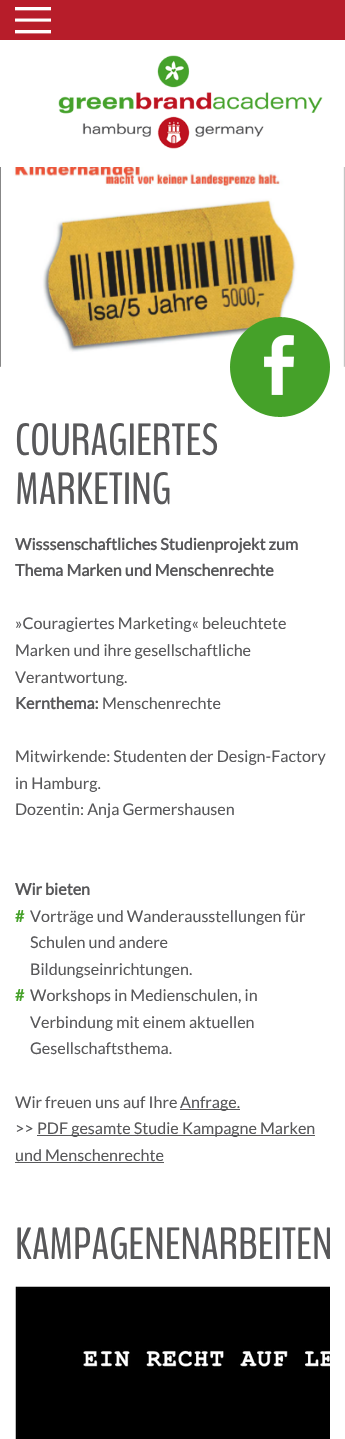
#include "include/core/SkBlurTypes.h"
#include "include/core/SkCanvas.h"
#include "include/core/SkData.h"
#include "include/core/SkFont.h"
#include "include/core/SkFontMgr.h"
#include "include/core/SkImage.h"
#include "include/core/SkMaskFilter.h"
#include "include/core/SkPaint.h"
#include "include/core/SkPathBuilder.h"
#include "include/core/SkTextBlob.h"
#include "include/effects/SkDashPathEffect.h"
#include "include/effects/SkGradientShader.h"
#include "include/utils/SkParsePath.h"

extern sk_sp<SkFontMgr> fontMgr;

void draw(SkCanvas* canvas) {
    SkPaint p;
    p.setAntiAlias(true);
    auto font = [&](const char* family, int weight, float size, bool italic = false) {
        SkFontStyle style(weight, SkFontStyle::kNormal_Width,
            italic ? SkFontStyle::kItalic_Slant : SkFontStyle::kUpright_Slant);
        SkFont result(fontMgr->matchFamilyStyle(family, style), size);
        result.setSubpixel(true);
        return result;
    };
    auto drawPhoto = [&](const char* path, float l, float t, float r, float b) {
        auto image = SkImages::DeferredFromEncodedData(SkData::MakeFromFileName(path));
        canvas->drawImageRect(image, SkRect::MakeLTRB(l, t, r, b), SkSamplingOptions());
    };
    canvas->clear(0xFFFFFFFF);
    p.setColor(0xFFB71D2A);
    canvas->drawRect(SkRect::MakeLTRB(0, 0, 345, 40), p);
    drawPhoto("media/1.png", 15, 7, 51, 34);
    drawPhoto("media/2.png", 58, 55, 323, 149);
    drawPhoto("media/3.png", 0, 167, 345, 367);
    drawPhoto("media/4.png", 230, 317, 330, 417);
    auto font1 = font("BenchNine", 400, 45);
    p.setColor(0xFF58585A);
    canvas->drawString("COURAGIERTES", 15, 455, font1, p);
    canvas->drawString("MARKETING", 15, 504, font1, p);
    auto font2 = font("Lato", 700, 16.1f);
    canvas->drawString("Wisssenschaftliches Studienprojekt zum", 15, 550, font2, p);
    canvas->drawString("Thema Marken und Menschenrechte", 15, 576, font2, p);
    auto font3 = font("Lato", 400, 16.1f);
    {
        const struct { const char* s; float x, y; } items[] = {
            {"»Couragiertes Marketing« beleuchtete", 15, 629},
            {"Marken und ihre gesellschaftliche", 15, 656},
            {"Verantwortung.", 15, 683},
        };
        for (auto [s, x, y] : items) {
            canvas->drawString(s, x, y, font3, p);
        }
    }
    canvas->drawString("Kernthema:", 15, 709, font2, p);
    {
        const struct { const char* s; float x, y; } items[] = {
            {"Menschenrechte", 102, 709},
            {"Mitwirkende: Studenten der Design-Factory", 15, 762},
            {"in Hamburg.", 15, 789},
            {"Dozentin: Anja Germershausen", 15, 815},
        };
        for (auto [s, x, y] : items) {
            canvas->drawString(s, x, y, font3, p);
        }
    }
    canvas->drawString("Wir bieten", 15, 895, font2, p);
    p.setColor(0xFF45A129);
    canvas->drawString("#", 15, 922, font2, p);
    p.setColor(0xFF58585A);
    {
        const struct { const char* s; float x, y; } items[] = {
            {"Vorträge und Wanderausstellungen für", 30, 922},
            {"Schulen und andere", 30, 948},
            {"Bildungseinrichtungen.", 30, 975},
        };
        for (auto [s, x, y] : items) {
            canvas->drawString(s, x, y, font3, p);
        }
    }
    p.setColor(0xFF45A129);
    canvas->drawString("#", 15, 1001, font2, p);
    p.setColor(0xFF58585A);
    {
        const struct { const char* s; float x, y; } items[] = {
            {"Workshops in Medienschulen, in", 30, 1001},
            {"Verbindung mit einem aktuellen", 30, 1028},
            {"Gesellschaftsthema.", 30, 1054},
            {"Wir freuen uns auf Ihre", 15, 1108},
        };
        for (auto [s, x, y] : items) {
            canvas->drawString(s, x, y, font3, p);
        }
    }
    canvas->drawRect(SkRect::MakeLTRB(180, 1109, 240, 1110), p);
    canvas->drawString("Anfrage.", 180, 1108, font3, p);
    canvas->drawString(">>", 15, 1134, font3, p);
    canvas->drawRect(SkRect::MakeLTRB(37, 1135, 315, 1136), p);
    canvas->drawString("PDF gesamte Studie Kampagne Marken", 37, 1134, font3, p);
    canvas->drawString("und Menschenrechte", 15, 1161, font3, p);
    canvas->drawRect(SkRect::MakeLTRB(15, 1162, 164, 1163), p);
    canvas->drawString("KAMPAGENENARBEITEN", 15, 1259, font1, p);
    drawPhoto("media/5.png", 15, 1286, 330, 1439);
}
